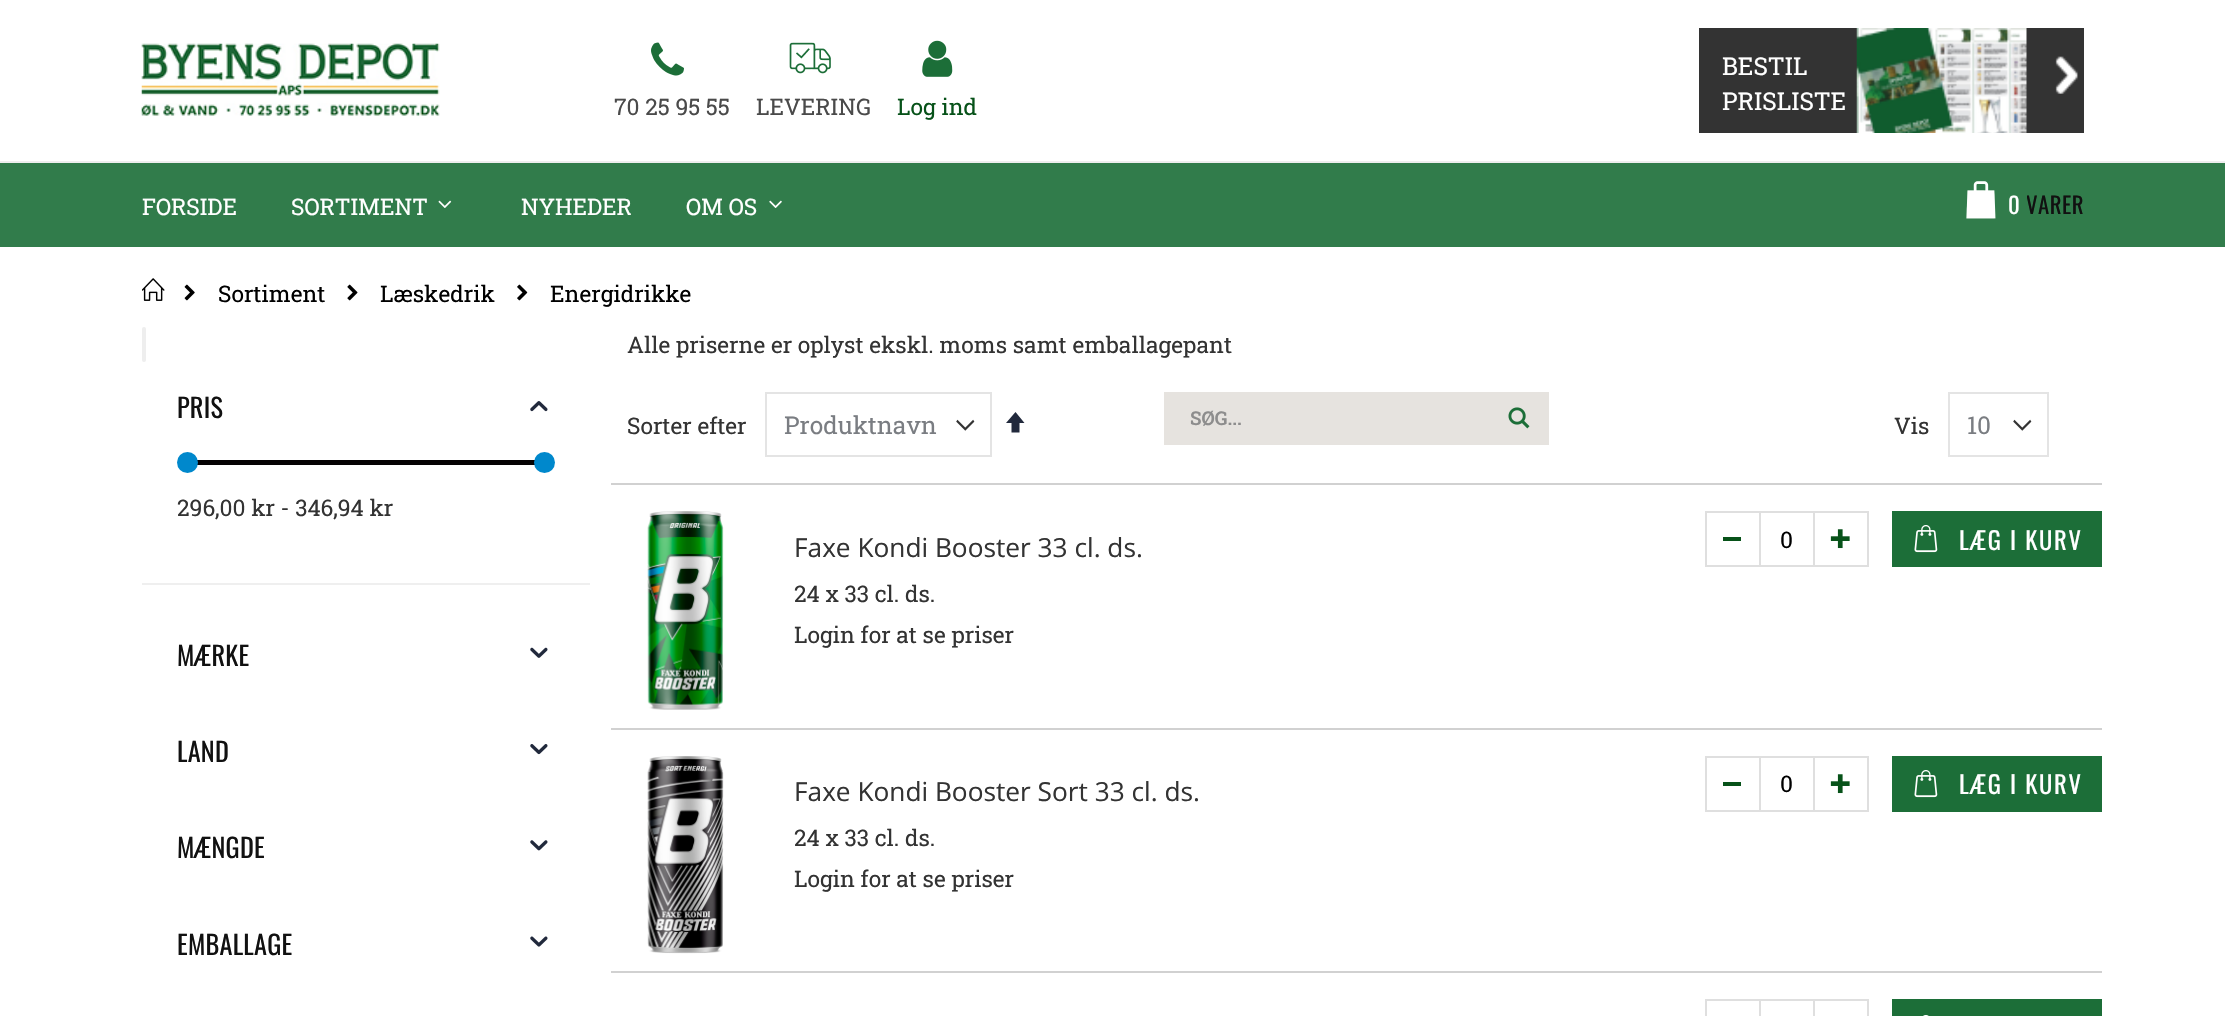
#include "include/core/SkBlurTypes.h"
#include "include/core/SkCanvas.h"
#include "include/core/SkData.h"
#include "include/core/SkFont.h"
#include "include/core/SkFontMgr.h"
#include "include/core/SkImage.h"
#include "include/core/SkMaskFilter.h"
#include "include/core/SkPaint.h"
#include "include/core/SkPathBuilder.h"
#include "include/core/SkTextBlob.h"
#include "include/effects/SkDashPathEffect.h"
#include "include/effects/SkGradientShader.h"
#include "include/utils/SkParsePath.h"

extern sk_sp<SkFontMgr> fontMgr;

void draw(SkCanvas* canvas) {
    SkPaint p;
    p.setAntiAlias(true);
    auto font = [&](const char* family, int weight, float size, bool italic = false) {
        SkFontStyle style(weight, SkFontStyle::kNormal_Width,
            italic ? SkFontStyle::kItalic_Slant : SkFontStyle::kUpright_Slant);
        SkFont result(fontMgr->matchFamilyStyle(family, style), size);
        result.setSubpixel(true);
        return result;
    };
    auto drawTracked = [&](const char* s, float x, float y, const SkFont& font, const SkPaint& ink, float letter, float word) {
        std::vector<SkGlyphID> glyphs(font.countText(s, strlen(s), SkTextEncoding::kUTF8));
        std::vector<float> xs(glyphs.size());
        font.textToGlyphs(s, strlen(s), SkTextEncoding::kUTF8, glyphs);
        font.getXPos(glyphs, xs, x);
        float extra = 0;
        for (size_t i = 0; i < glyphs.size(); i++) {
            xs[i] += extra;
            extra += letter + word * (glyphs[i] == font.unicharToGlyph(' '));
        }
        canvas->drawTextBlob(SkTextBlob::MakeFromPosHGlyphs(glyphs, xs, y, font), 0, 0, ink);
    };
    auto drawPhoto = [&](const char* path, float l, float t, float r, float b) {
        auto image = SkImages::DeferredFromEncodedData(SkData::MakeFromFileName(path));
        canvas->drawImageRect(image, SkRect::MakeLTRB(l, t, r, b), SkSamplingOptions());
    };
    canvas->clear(0xFFFFFFFF);
    p.setColor(0xFF317C4B);
    canvas->drawRect(SkRect::MakeLTRB(0, 163, 2225, 247), p);
    p.setColor(0xFFEEEEEE);
    canvas->drawRect(SkRect::MakeLTRB(0, 161, 2225, 163), p);
    auto font1 = font("Roboto Slab", 400, 22.75f);
    p.setColor(0xFFFFFFFF);
    canvas->drawString("FORSIDE", 142, 215, font1, p);
    canvas->drawString("SORTIMENT", 291, 215, font1, p);
    drawPhoto("media/1.png", 438, 200, 452, 208);
    canvas->drawString("NYHEDER", 521, 215, font1, p);
    canvas->drawString("OM OS", 686, 215, font1, p);
    drawPhoto("media/2.png", 769, 200, 782, 208);
    drawPhoto("media/3.png", 141, 43, 440, 116);
    drawPhoto("media/4.png", 651, 42, 684, 76);
    p.setColor(0xFF4A4A4A);
    canvas->drawString("70 25 95 55", 614, 115, font1, p);
    drawPhoto("media/5.png", 789, 42, 831, 74);
    canvas->drawString("LEVERING", 756, 115, font1, p);
    drawPhoto("media/6.png", 922, 40, 953, 77);
    p.setColor(0xFF075219);
    canvas->drawString("Log ind", 897, 115, font1, p);
    p.setColor(0xFF333333);
    canvas->drawRect(SkRect::MakeLTRB(1699, 28, 2084, 133), p);
    auto font2 = font("Roboto Slab", 400, 24.5f);
    p.setColor(0xFFFFFFFF);
    canvas->drawString("BESTIL", 1722, 75, font2, p);
    canvas->drawString("PRISLISTE", 1722, 110, font2, p);
    drawPhoto("media/7.png", 1856, 28, 2027, 133);
    drawPhoto("media/8.png", 2055, 56, 2078, 94);
    drawPhoto("media/9.png", 1966, 181, 1996, 219);
    auto font3 = font("Oswald", 400, 22.75f);
    drawTracked("0", 2008, 214, font3, p, 0.5f, 0);
    canvas->save();
    canvas->clipRect(SkRect::MakeLTRB(2027, 184, 2084, 226));
    p.setColor(0xFF111111);
    drawTracked("VARER", 2026, 214, font3, p, 0.5f, 0);
    canvas->restore();
    drawPhoto("media/10.png", 142, 278, 165, 301);
    drawPhoto("media/11.png", 184, 284, 195, 301);
    p.setColor(0xFF000000);
    canvas->drawString("Sortiment", 218, 302, font1, p);
    drawPhoto("media/12.png", 347, 284, 358, 301);
    canvas->drawString("Læskedrik", 380, 302, font1, p);
    drawPhoto("media/13.png", 517, 284, 528, 301);
    canvas->drawString("Energidrikke", 550, 302, font1, p);
    p.setColor(0xFFEEEEEE);
    canvas->drawRoundRect(SkRect::MakeLTRB(142, 327, 146, 362), 2, 2, p);
    auto font4 = font("Oswald", 400, 26.25f);
    p.setColor(0xFF111111);
    drawTracked("PRIS", 177, 418, font4, p, 0.25f, 0);
    drawPhoto("media/14.png", 530, 401, 548, 412);
    p.setColor(0xFFEFEFEF);
    canvas->drawRect(SkRect::MakeLTRB(142, 583, 590, 585), p);
    p.setColor(0xFF050203);
    canvas->drawRect(SkRect::MakeLTRB(189, 460, 535, 465), p);
    p.setColor(0xFF0088CC);
    canvas->drawCircle(187.5f, 462.5f, 10.5f, p);
    canvas->drawCircle(544.5f, 462.5f, 10.5f, p);
    p.setColor(0xFF333333);
    canvas->drawString("296,00 kr - 346,94 kr", 177, 516, font1, p);
    p.setColor(0xFF111111);
    drawTracked("MÆRKE", 177, 666, font4, p, 0.25f, 0);
    drawPhoto("media/15.png", 530, 647, 548, 658);
    drawTracked("LAND", 177, 762, font4, p, 0.25f, 0);
    drawPhoto("media/16.png", 530, 744, 548, 755);
    drawTracked("MÆNGDE", 177, 858, font4, p, 0.25f, 0);
    drawPhoto("media/17.png", 530, 840, 548, 851);
    drawTracked("EMBALLAGE", 177, 955, font4, p, 0.25f, 0);
    drawPhoto("media/18.png", 530, 936, 548, 947);
    p.setColor(0xFF333333);
    canvas->drawString("Alle priserne er oplyst ekskl. moms samt emballagepant", 627, 353, font1, p);
    canvas->drawString("Sorter efter", 627, 434, font1, p);
    drawPhoto("media/19.png", 956, 419, 975, 431);
    p.setStyle(SkPaint::kStroke_Style);
    p.setStrokeWidth(2);
    p.setColor(0xFFE4E4E4);
    canvas->drawRect(SkRect::MakeLTRB(766, 393, 991, 456), p);
    p.setStyle(SkPaint::kFill_Style);
    p.setColor(0xFF7A7D82);
    canvas->drawString("Produktnavn", 784, 434, font2, p);
    p.setColor(0xFF21293C);
    canvas->drawPath(SkPathBuilder().moveTo(1024.5f, 423).lineTo(1019.5f, 423).lineTo(1019.5f, 432.5f).lineTo(1011.5f, 432.5f).lineTo(1011.5f, 423).lineTo(1006, 423).lineTo(1015.5f, 412).close().detach(), p);
    p.setColor(0xFFE6E3DF);
    canvas->drawRect(SkRect::MakeLTRB(1164, 392, 1549, 445), p);
    auto font5 = font("Roboto Slab", 600, 19);
    p.setColor(0xFF8D8D8D);
    canvas->drawString("SØG...", 1190, 425, font5, p);
    drawPhoto("media/20.png", 1508, 407, 1530, 429);
    p.setColor(0xFF333333);
    canvas->drawString("Vis", 1894, 434, font1, p);
    drawPhoto("media/19.png", 2013, 419, 2032, 431);
    p.setStyle(SkPaint::kStroke_Style);
    p.setColor(0xFFE4E4E4);
    canvas->drawRect(SkRect::MakeLTRB(1949, 393, 2048, 456), p);
    p.setStyle(SkPaint::kFill_Style);
    p.setColor(0xFF7A7D82);
    canvas->drawString("10", 1967, 434, font2, p);
    p.setColor(0xFFD1D1D1);
    canvas->drawRect(SkRect::MakeLTRB(611, 483, 2102, 485), p);
    canvas->drawRect(SkRect::MakeLTRB(611, 728, 2102, 730), p);
    drawPhoto("media/21.png", 647, 511, 724, 710);
    auto font6 = font("Open Sans", 400, 26.25f);
    p.setColor(0xFF333333);
    canvas->drawString("Faxe Kondi Booster 33 cl. ds.", 794, 557, font6, p);
    canvas->drawString("24 x 33 cl. ds.", 794, 602, font1, p);
    canvas->drawString("Login for at se priser", 794, 643, font1, p);
    p.setStyle(SkPaint::kStroke_Style);
    p.setColor(0xFFDFDFDF);
    canvas->drawRect(SkRect::MakeLTRB(1760, 512, 1814, 566), p);
    canvas->drawRect(SkRect::MakeLTRB(1706, 512, 1760, 566), p);
    p.setStyle(SkPaint::kFill_Style);
    p.setColor(0xFF075219);
    canvas->drawRect(SkRect::MakeLTRB(1723, 537, 1741, 541), p);
    p.setColor(0xFF000000);
    canvas->drawString("0", 1780, 548, font1, p);
    p.setStyle(SkPaint::kStroke_Style);
    p.setColor(0xFFDFDFDF);
    canvas->drawRect(SkRect::MakeLTRB(1814, 512, 1868, 566), p);
    drawPhoto("media/22.png", 1830, 529, 1850, 549);
    p.setStyle(SkPaint::kFill_Style);
    p.setColor(0xFF1C6E38);
    canvas->drawRect(SkRect::MakeLTRB(1892, 511, 2102, 567), p);
    drawPhoto("media/23.png", 1914, 525, 1938, 553);
    auto font7 = font("Oswald", 400, 24.5f);
    p.setColor(0xFFFFFFFF);
    drawTracked("LÆG I KURV", 1959, 550, font7, p, 1.75f, 0);
    p.setColor(0xFFD1D1D1);
    canvas->drawRect(SkRect::MakeLTRB(611, 971, 2102, 973), p);
    drawPhoto("media/24.png", 647, 756, 724, 954);
    p.setColor(0xFF333333);
    canvas->drawString("Faxe Kondi Booster Sort 33 cl. ds.", 794, 801, font6, p);
    canvas->drawString("24 x 33 cl. ds.", 794, 846, font1, p);
    canvas->drawString("Login for at se priser", 794, 887, font1, p);
    p.setStyle(SkPaint::kStroke_Style);
    p.setColor(0xFFDFDFDF);
    canvas->drawRect(SkRect::MakeLTRB(1760, 757, 1814, 811), p);
    canvas->drawRect(SkRect::MakeLTRB(1706, 757, 1760, 811), p);
    p.setStyle(SkPaint::kFill_Style);
    p.setColor(0xFF075219);
    canvas->drawRect(SkRect::MakeLTRB(1723, 782, 1741, 786), p);
    p.setColor(0xFF000000);
    canvas->drawString("0", 1780, 792, font1, p);
    p.setStyle(SkPaint::kStroke_Style);
    p.setColor(0xFFDFDFDF);
    canvas->drawRect(SkRect::MakeLTRB(1814, 757, 1868, 811), p);
    drawPhoto("media/22.png", 1830, 774, 1850, 794);
    p.setStyle(SkPaint::kFill_Style);
    p.setColor(0xFF1C6E38);
    canvas->drawRect(SkRect::MakeLTRB(1892, 756, 2102, 812), p);
    drawPhoto("media/23.png", 1914, 770, 1938, 798);
    p.setColor(0xFFFFFFFF);
    drawTracked("LÆG I KURV", 1959, 794, font7, p, 1.75f, 0);
    p.setStyle(SkPaint::kStroke_Style);
    p.setColor(0xFFDFDFDF);
    canvas->drawRect(SkRect::MakeLTRB(1760, 1000, 1814, 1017), p);
    canvas->drawRect(SkRect::MakeLTRB(1706, 1000, 1760, 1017), p);
    canvas->drawRect(SkRect::MakeLTRB(1814, 1000, 1868, 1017), p);
    p.setStyle(SkPaint::kFill_Style);
    p.setColor(0xFF1C6E38);
    canvas->drawRect(SkRect::MakeLTRB(1892, 999, 2102, 1016), p);
    drawPhoto("media/25.png", 1923, 1015, 1929, 1016);
}
